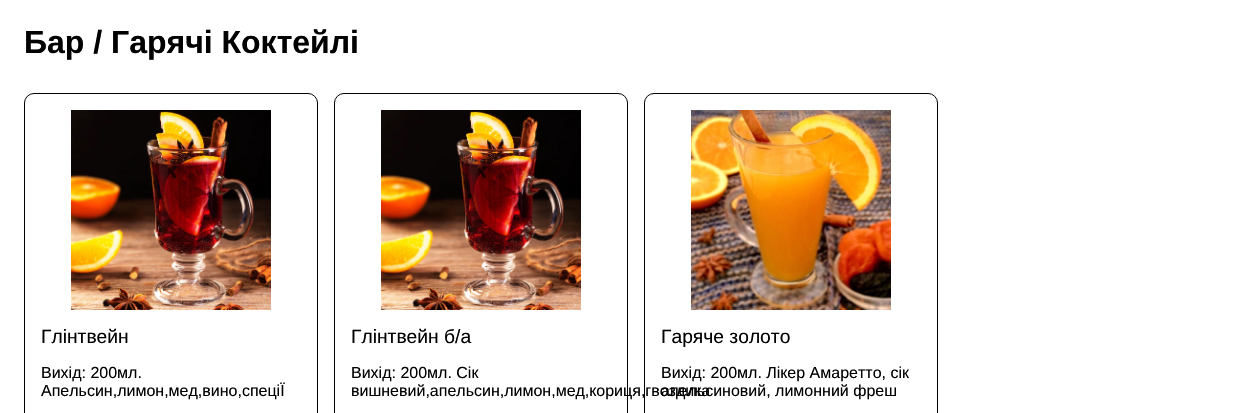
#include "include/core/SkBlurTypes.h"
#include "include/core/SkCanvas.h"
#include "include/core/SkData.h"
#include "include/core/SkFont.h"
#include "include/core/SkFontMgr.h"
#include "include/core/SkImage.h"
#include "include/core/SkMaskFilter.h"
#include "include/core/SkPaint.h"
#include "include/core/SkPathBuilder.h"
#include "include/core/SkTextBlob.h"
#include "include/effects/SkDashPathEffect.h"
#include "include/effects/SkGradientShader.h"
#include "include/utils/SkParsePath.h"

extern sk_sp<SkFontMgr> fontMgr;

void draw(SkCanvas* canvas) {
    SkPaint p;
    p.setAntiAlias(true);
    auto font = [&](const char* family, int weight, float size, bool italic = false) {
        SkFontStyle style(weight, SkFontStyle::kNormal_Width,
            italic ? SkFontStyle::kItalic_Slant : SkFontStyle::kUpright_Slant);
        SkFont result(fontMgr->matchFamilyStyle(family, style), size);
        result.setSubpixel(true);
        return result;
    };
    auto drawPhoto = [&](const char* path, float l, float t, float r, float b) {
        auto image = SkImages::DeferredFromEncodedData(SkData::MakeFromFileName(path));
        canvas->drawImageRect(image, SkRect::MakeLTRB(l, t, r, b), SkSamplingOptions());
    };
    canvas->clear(0xFFFFFFFF);
    auto font1 = font("Liberation Sans", 700, 32);
    p.setColor(0xFF000000);
    canvas->drawString("Бар / Гарячі Коктейлі", 24, 53, font1, p);
    p.setStyle(SkPaint::kStroke_Style);
    p.setStrokeWidth(1);
    canvas->drawRoundRect(SkRect::MakeLTRB(24.5f, 93.5f, 317.5f, 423.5f), 9.5f, 9.5f, p);
    drawPhoto("media/1.png", 71, 110, 271, 310);
    auto font2 = font("Liberation Sans", 400, 19.25f);
    p.setStyle(SkPaint::kFill_Style);
    canvas->drawString("Глінтвейн", 41, 343, font2, p);
    auto font3 = font("Liberation Sans", 400, 16);
    canvas->drawString("Вихід: 200мл.", 41, 378, font3, p);
    canvas->drawString("Апельсин,лимон,мед,вино,спеціЇ", 41, 396, font3, p);
    p.setStyle(SkPaint::kStroke_Style);
    canvas->drawRoundRect(SkRect::MakeLTRB(334.5f, 93.5f, 627.5f, 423.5f), 9.5f, 9.5f, p);
    drawPhoto("media/2.png", 381, 110, 581, 310);
    p.setStyle(SkPaint::kFill_Style);
    canvas->drawString("Глінтвейн б/а", 351, 343, font2, p);
    canvas->drawString("Вихід: 200мл. Сік", 351, 378, font3, p);
    canvas->drawString("вишневий,апельсин,лимон,мед,кориця,гвоздика", 351, 396, font3, p);
    p.setStyle(SkPaint::kStroke_Style);
    canvas->drawRoundRect(SkRect::MakeLTRB(644.5f, 93.5f, 937.5f, 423.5f), 9.5f, 9.5f, p);
    drawPhoto("media/3.png", 691, 110, 891, 310);
    p.setStyle(SkPaint::kFill_Style);
    canvas->drawString("Гаряче золото", 661, 343, font2, p);
    canvas->drawString("Вихід: 200мл. Лікер Амаретто, сік", 661, 378, font3, p);
    canvas->drawString("апельсиновий, лимонний фреш", 661, 396, font3, p);
}
